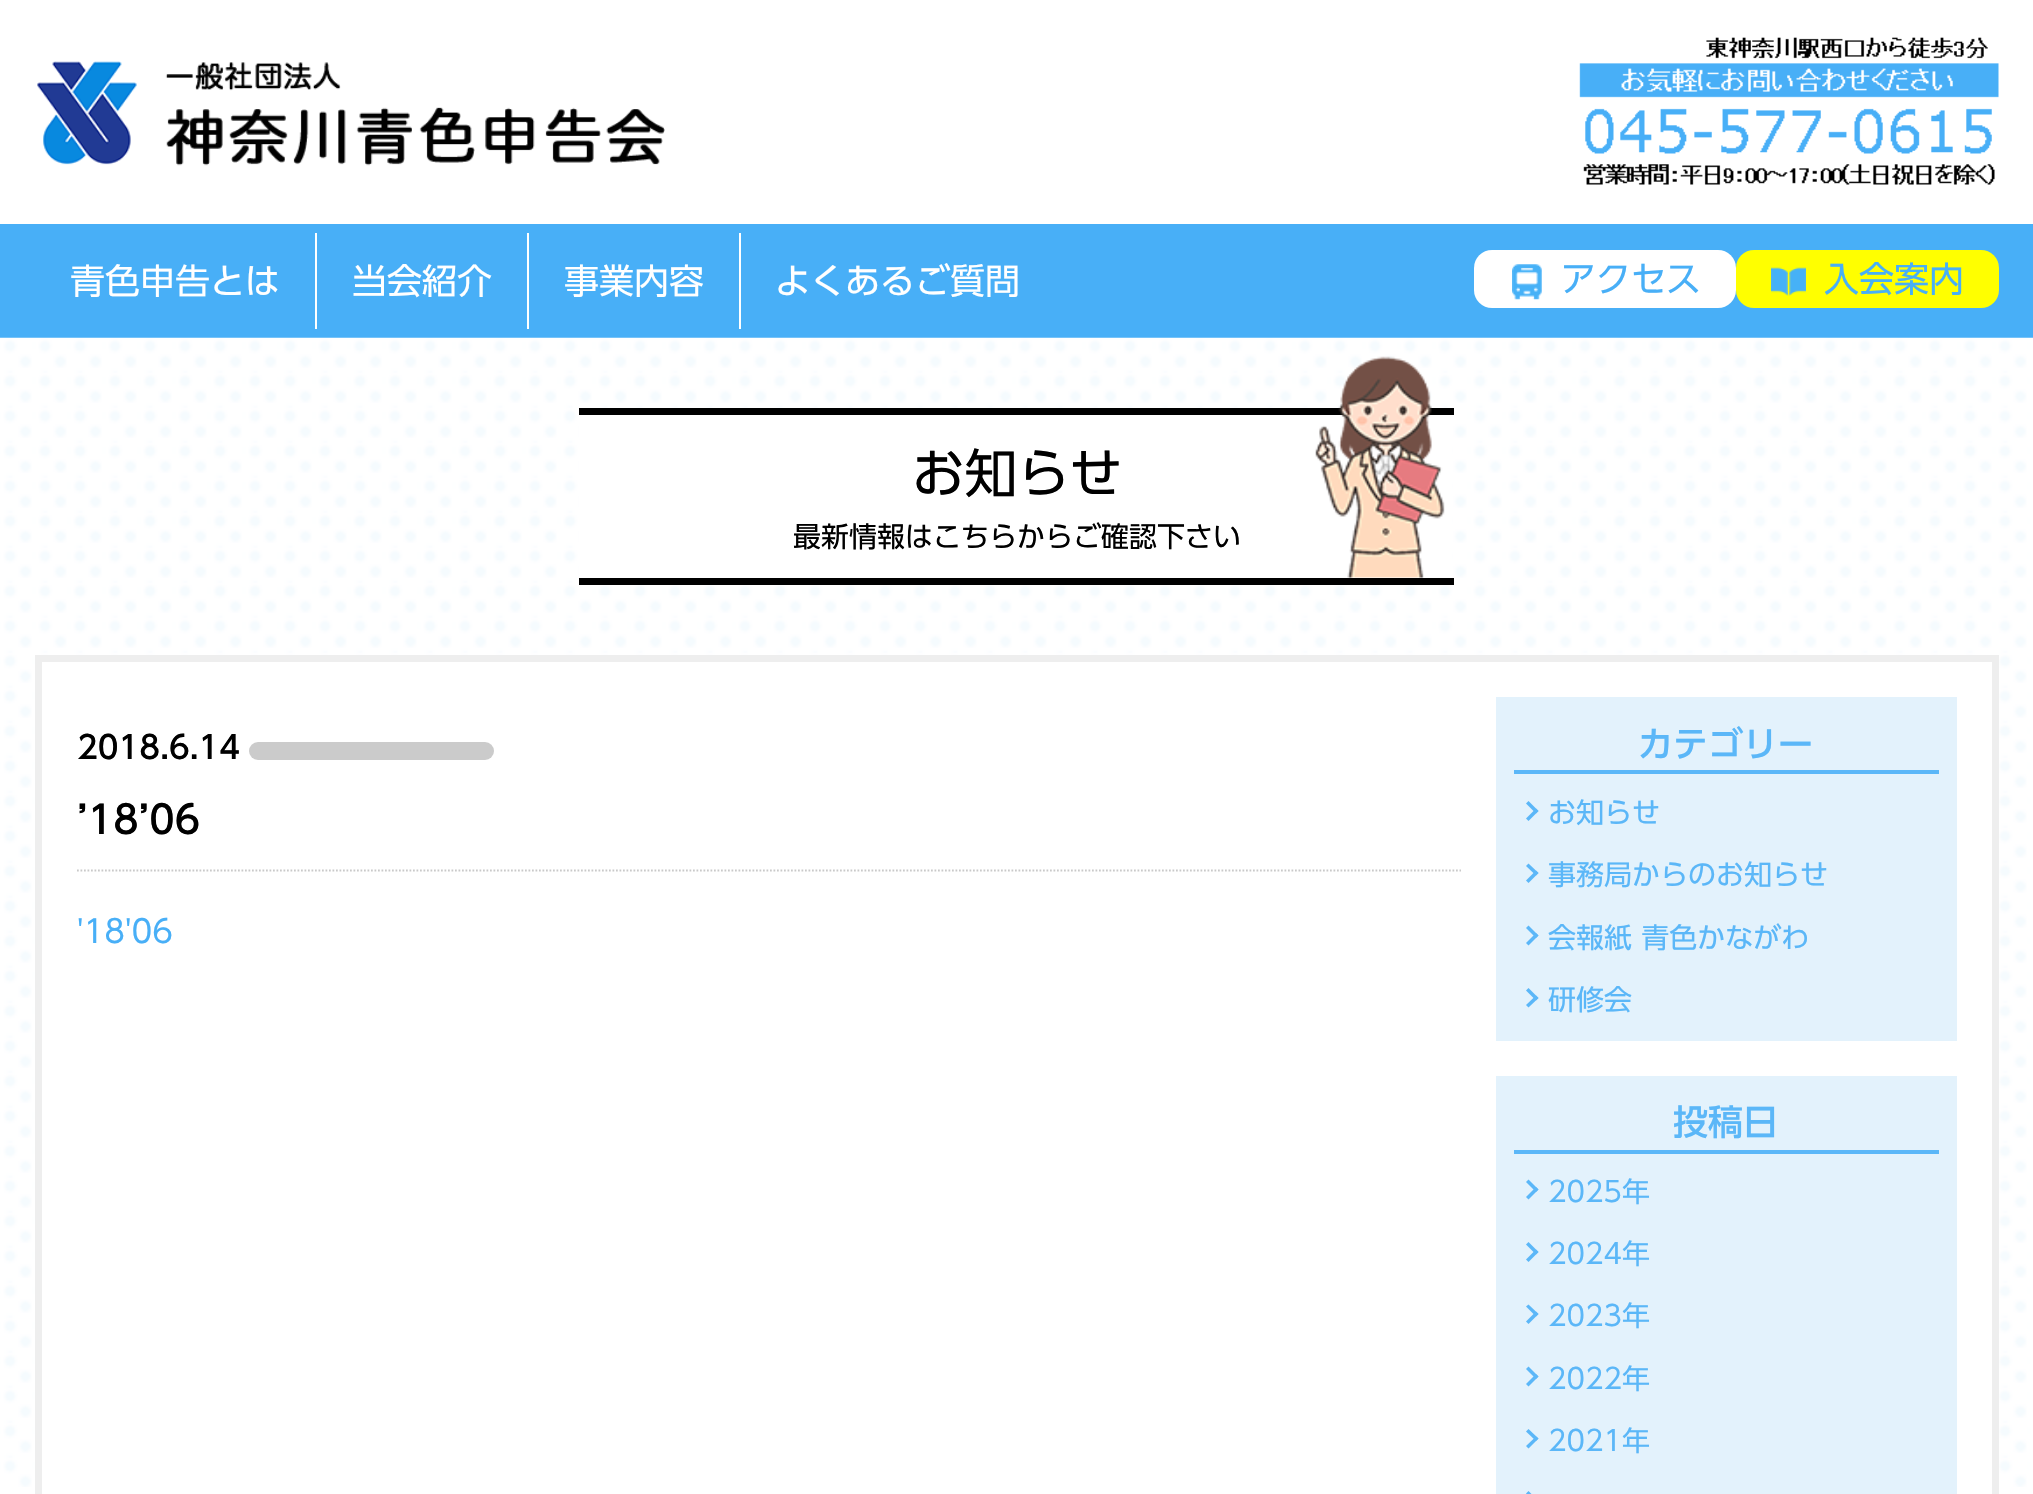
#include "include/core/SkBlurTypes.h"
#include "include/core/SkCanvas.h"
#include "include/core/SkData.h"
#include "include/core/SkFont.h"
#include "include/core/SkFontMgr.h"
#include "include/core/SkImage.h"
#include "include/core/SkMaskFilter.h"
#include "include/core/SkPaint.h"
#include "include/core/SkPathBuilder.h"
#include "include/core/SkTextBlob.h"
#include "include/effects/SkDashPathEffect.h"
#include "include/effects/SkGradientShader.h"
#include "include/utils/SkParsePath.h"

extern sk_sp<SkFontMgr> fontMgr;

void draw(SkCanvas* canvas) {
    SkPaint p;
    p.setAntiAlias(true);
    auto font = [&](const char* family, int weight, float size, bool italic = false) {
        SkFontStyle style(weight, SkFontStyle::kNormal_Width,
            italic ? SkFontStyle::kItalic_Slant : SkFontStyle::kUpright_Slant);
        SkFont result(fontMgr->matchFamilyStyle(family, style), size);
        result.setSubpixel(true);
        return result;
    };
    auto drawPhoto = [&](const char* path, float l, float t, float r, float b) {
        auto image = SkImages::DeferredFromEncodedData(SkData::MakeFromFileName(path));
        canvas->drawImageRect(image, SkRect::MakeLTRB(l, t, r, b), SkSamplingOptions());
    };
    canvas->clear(0xFFFFFFFF);
    drawPhoto("media/1.png", 37, 61, 665, 166);
    drawPhoto("media/2.png", 1579, 37, 1999, 185);
    p.setColor(0xFF48AFF7);
    canvas->drawRect(SkRect::MakeLTRB(0, 224, 2033, 338), p);
    auto font1 = font("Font", 400, 35);
    p.setColor(0xFFFFFFFF);
    canvas->drawString("青色申告とは", 70, 294, font1, p);
    canvas->drawRect(SkRect::MakeLTRB(315, 233, 317, 329), p);
    canvas->drawString("当会紹介", 352, 294, font1, p);
    canvas->drawRect(SkRect::MakeLTRB(527, 233, 529, 329), p);
    canvas->drawString("事業内容", 564, 294, font1, p);
    canvas->drawRect(SkRect::MakeLTRB(739, 233, 741, 329), p);
    canvas->drawString("よくあるご質問", 775, 294, font1, p);
    canvas->drawRoundRect(SkRect::MakeLTRB(1474, 250, 1736, 308), 18, 18, p);
    drawPhoto("media/3.png", 1512, 264, 1542, 300);
    p.setColor(0xFF48AFF7);
    canvas->drawString("アクセス", 1561, 292, font1, p);
    p.setColor(0xFFFFFF00);
    canvas->drawRoundRect(SkRect::MakeLTRB(1736, 250, 1999, 308), 18, 18, p);
    drawPhoto("media/4.png", 1771, 267, 1806, 296);
    p.setColor(0xFF48AFF7);
    canvas->drawString("入会案内", 1824, 292, font1, p);
    drawPhoto("media/5.png", 0, 337, 2033, 1487);
    {
        const struct { float l, t, r, b; SkColor color; } items[] = {
            {579, 415, 1452, 578, 0xFFFFFFFF},
            {579, 408, 1454, 415, 0xFF000000},
            {579, 578, 1454, 585, 0xFF000000},
        };
        for (auto [l, t, r, b, color] : items) {
            p.setColor(color);
            canvas->drawRect(SkRect::MakeLTRB(l, t, r, b), p);
        }
    }
    auto font2 = font("Font", 400, 52.5f);
    canvas->drawString("お知らせ", 912, 493, font2, p);
    drawPhoto("media/6.png", 1315, 356, 1445, 578);
    auto font3 = font("Font", 400, 28);
    canvas->drawString("最新情報はこちらからご確認下さい", 793, 547, font3, p);
    p.setColor(0xFFFFFFFF);
    canvas->drawRect(SkRect::MakeLTRB(42, 662, 1992, 1487), p);
    p.setStyle(SkPaint::kStroke_Style);
    p.setStrokeWidth(7);
    p.setColor(0xFFEEEEEE);
    canvas->drawRect(SkRect::MakeLTRB(38.5f, 658.5f, 1995.5f, 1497.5f), p);
    p.setStrokeWidth(1.8f);
    p.setColor(0xFFC9C9C9);
    p.setPathEffect(SkDashPathEffect::Make({{1.75f, 1.75f}}, 0));
    canvas->drawPath(SkPathBuilder().moveTo(77, 870.5f).lineTo(1461, 870.5f).detach(), p);
    p.setPathEffect(nullptr);
    auto font4 = font("Font", 500, 31.5f);
    p.setStyle(SkPaint::kFill_Style);
    p.setColor(0xFF000000);
    canvas->drawString("2018.6.14", 77, 759, font4, p);
    p.setColor(0xFFCBCBCB);
    canvas->drawRoundRect(SkRect::MakeLTRB(249, 742, 494, 760), 9, 9, p);
    auto font5 = font("Font", 500, 38.5f);
    p.setColor(0xFF000000);
    canvas->drawString("’18’06", 77, 834, font5, p);
    auto font6 = font("Font", 400, 31.5f);
    p.setColor(0xFF48AFF7);
    canvas->drawString("'18'06", 77, 943, font6, p);
    p.setColor(0xFFE3F2FC);
    canvas->drawRect(SkRect::MakeLTRB(1496, 697, 1957, 1041), p);
    p.setColor(0xFF5BB7F8);
    canvas->drawRect(SkRect::MakeLTRB(1514, 770, 1939, 774), p);
    auto font7 = font("Font", 500, 35);
    canvas->drawString("カテゴリー", 1638, 757, font7, p);
    canvas->drawPath(SkPathBuilder().moveTo(1526, 803.5f).lineTo(1528.5f, 801).lineTo(1538.5f, 811).lineTo(1536, 813.5f).close().detach(), p);
    canvas->drawPath(SkPathBuilder().moveTo(1526, 818.5f).lineTo(1536, 808.5f).lineTo(1538.5f, 811).lineTo(1528.5f, 821).close().detach(), p);
    canvas->drawString("お知らせ", 1548, 823, font3, p);
    canvas->drawPath(SkPathBuilder().moveTo(1526, 866).lineTo(1528.5f, 863.5f).lineTo(1538.5f, 873).lineTo(1536, 875.5f).close().detach(), p);
    canvas->drawPath(SkPathBuilder().moveTo(1526, 880.5f).lineTo(1536, 870.5f).lineTo(1538.5f, 873).lineTo(1528.5f, 883).close().detach(), p);
    canvas->drawString("事務局からのお知らせ", 1548, 885, font3, p);
    canvas->drawPath(SkPathBuilder().moveTo(1526, 928).lineTo(1528.5f, 925.5f).lineTo(1538.5f, 935.5f).lineTo(1536, 938).close().detach(), p);
    canvas->drawPath(SkPathBuilder().moveTo(1526, 943).lineTo(1536, 933).lineTo(1538.5f, 935.5f).lineTo(1528.5f, 945.5f).close().detach(), p);
    canvas->drawString("会報紙 青色かながわ", 1548, 948, font3, p);
    canvas->drawPath(SkPathBuilder().moveTo(1526, 990.5f).lineTo(1528.5f, 988).lineTo(1538.5f, 998).lineTo(1536, 1000.5f).close().detach(), p);
    canvas->drawPath(SkPathBuilder().moveTo(1526, 1005).lineTo(1536, 995.5f).lineTo(1538.5f, 998).lineTo(1528.5f, 1007.5f).close().detach(), p);
    canvas->drawString("研修会", 1548, 1010, font3, p);
    p.setColor(0xFFE3F2FC);
    canvas->drawRect(SkRect::MakeLTRB(1496, 1076, 1957, 1494), p);
    p.setColor(0xFF5BB7F8);
    canvas->drawRect(SkRect::MakeLTRB(1514, 1150, 1939, 1154), p);
    canvas->drawString("投稿日", 1673, 1135, font7, p);
    canvas->drawPath(SkPathBuilder().moveTo(1526, 1182).lineTo(1528.5f, 1179.5f).lineTo(1538.5f, 1189.5f).lineTo(1536, 1192).close().detach(), p);
    canvas->drawPath(SkPathBuilder().moveTo(1526, 1197).lineTo(1536, 1187).lineTo(1538.5f, 1189.5f).lineTo(1528.5f, 1199.5f).close().detach(), p);
    canvas->drawString("2025年", 1548, 1202, font3, p);
    canvas->drawPath(SkPathBuilder().moveTo(1526, 1244.5f).lineTo(1528.5f, 1242).lineTo(1538.5f, 1252).lineTo(1536, 1254.5f).close().detach(), p);
    canvas->drawPath(SkPathBuilder().moveTo(1526, 1259.5f).lineTo(1536, 1249.5f).lineTo(1538.5f, 1252).lineTo(1528.5f, 1262).close().detach(), p);
    canvas->drawString("2024年", 1548, 1264, font3, p);
    canvas->drawPath(SkPathBuilder().moveTo(1526, 1306.5f).lineTo(1528.5f, 1304.5f).lineTo(1538.5f, 1314).lineTo(1536, 1316.5f).close().detach(), p);
    canvas->drawPath(SkPathBuilder().moveTo(1526, 1321.5f).lineTo(1536, 1311.5f).lineTo(1538.5f, 1314).lineTo(1528.5f, 1324).close().detach(), p);
    canvas->drawString("2023年", 1548, 1326, font3, p);
    canvas->drawPath(SkPathBuilder().moveTo(1526, 1369).lineTo(1528.5f, 1366.5f).lineTo(1538.5f, 1376.5f).lineTo(1536, 1379).close().detach(), p);
    canvas->drawPath(SkPathBuilder().moveTo(1526, 1384).lineTo(1536, 1374).lineTo(1538.5f, 1376.5f).lineTo(1528.5f, 1386.5f).close().detach(), p);
    canvas->drawString("2022年", 1548, 1389, font3, p);
    canvas->drawPath(SkPathBuilder().moveTo(1526, 1431.5f).lineTo(1528.5f, 1429).lineTo(1538.5f, 1438.5f).lineTo(1536, 1441).close().detach(), p);
    canvas->drawPath(SkPathBuilder().moveTo(1526, 1446).lineTo(1536, 1436.5f).lineTo(1538.5f, 1438.5f).lineTo(1528.5f, 1448.5f).close().moveTo(1526, 1493.5f).lineTo(1528.5f, 1491).lineTo(1538.5f, 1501).lineTo(1536, 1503.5f).close().detach(), p);
    canvas->drawString("2021年", 1548, 1451, font3, p);
}
